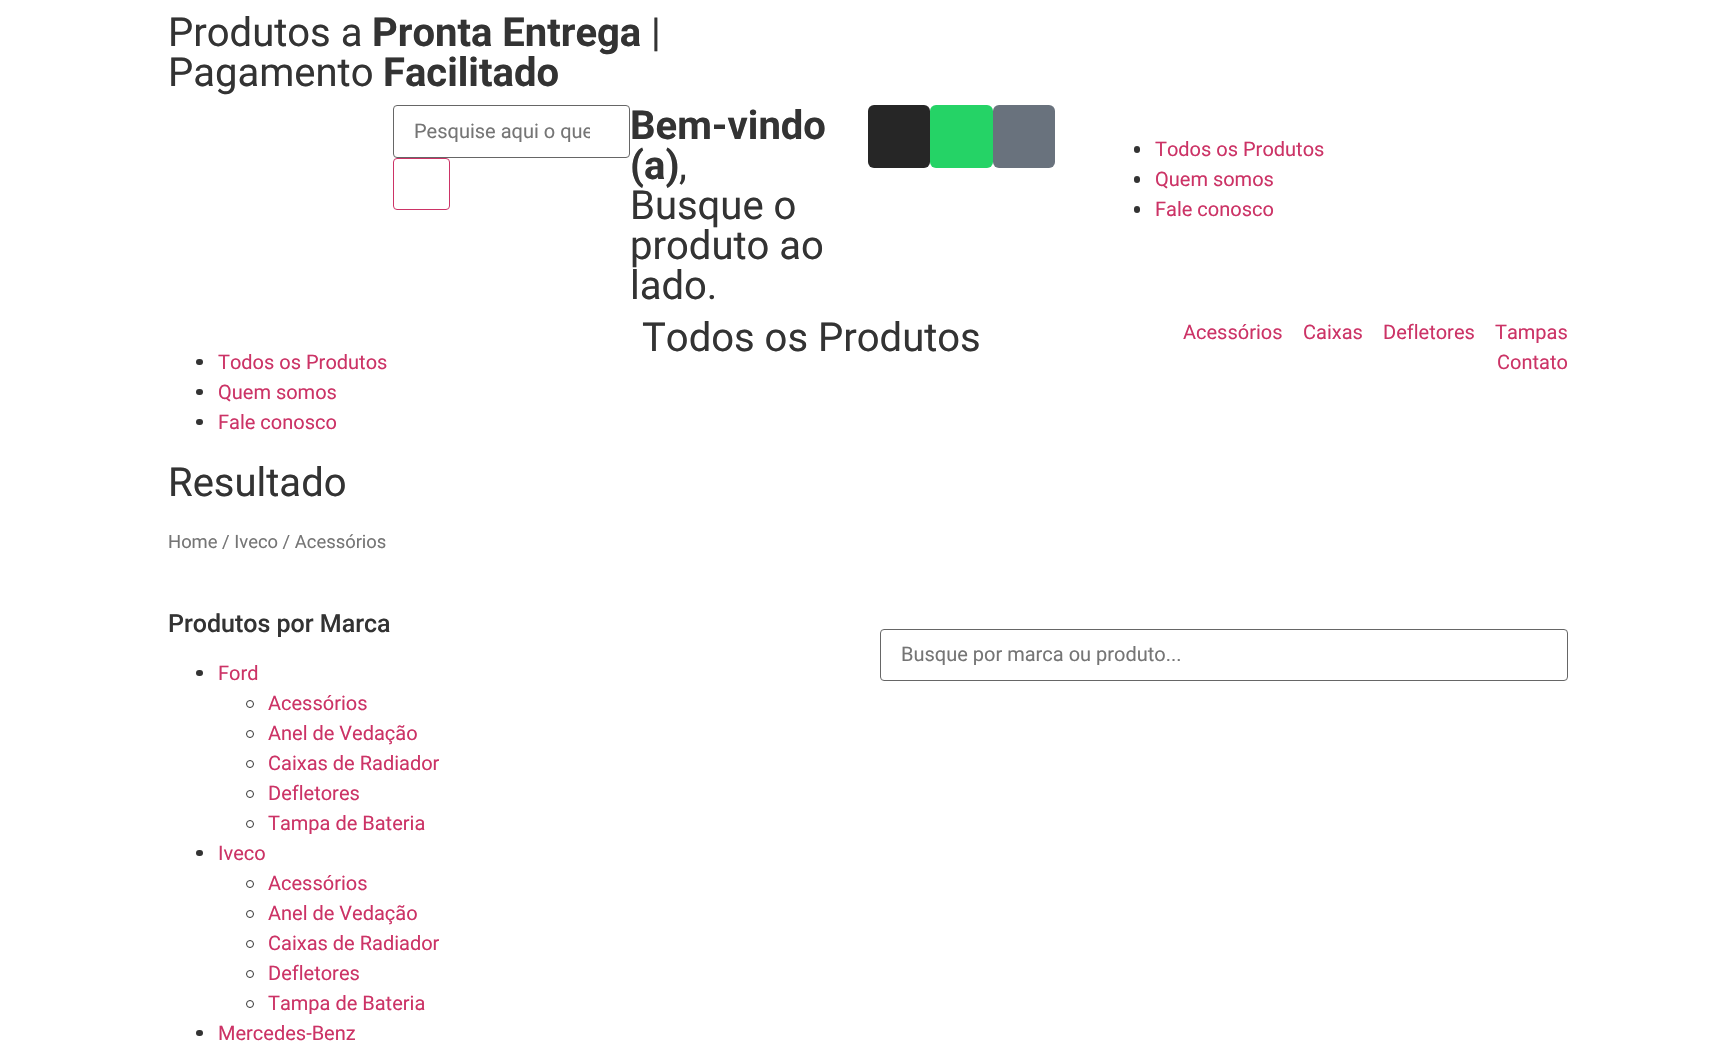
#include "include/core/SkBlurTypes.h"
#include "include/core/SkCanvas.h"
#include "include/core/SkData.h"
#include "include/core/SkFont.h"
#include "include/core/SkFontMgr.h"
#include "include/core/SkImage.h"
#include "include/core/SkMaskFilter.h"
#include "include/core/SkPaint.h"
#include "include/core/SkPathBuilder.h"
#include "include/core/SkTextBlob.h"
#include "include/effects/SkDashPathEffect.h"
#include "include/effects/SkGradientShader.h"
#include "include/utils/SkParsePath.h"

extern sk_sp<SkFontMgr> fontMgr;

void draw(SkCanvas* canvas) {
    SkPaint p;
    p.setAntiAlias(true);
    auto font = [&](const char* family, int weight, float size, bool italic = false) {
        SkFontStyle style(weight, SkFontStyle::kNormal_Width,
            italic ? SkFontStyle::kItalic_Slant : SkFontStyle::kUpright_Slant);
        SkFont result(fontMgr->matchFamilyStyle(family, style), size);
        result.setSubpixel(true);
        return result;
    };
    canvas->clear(0xFFFFFFFF);
    auto font1 = font("Roboto", 400, 40);
    p.setColor(0xFF333333);
    canvas->drawString("Produtos a", 168, 46, font1, p);
    auto font2 = font("Roboto", 700, 40);
    canvas->drawString("Pronta Entrega", 372, 46, font2, p);
    canvas->drawString("|", 651, 46, font1, p);
    canvas->drawString("Pagamento", 168, 86, font1, p);
    canvas->drawString("Facilitado", 383, 86, font2, p);
    p.setStyle(SkPaint::kStroke_Style);
    p.setStrokeWidth(1);
    p.setColor(0xFF666666);
    canvas->drawRoundRect(SkRect::MakeLTRB(393.5f, 105.5f, 629.5f, 157.5f), 3.5f, 3.5f, p);
    canvas->save();
    canvas->clipRect(SkRect::MakeLTRB(414, 119, 590, 143));
    auto font3 = font("Roboto", 400, 20);
    p.setStyle(SkPaint::kFill_Style);
    p.setColor(0xFF757575);
    canvas->drawString("Pesquise aqui o que", 414, 138, font3, p);
    canvas->restore();
    p.setStyle(SkPaint::kStroke_Style);
    p.setColor(0xFFCC3366);
    canvas->drawRoundRect(SkRect::MakeLTRB(393.5f, 158.5f, 449.5f, 209.5f), 3.5f, 3.5f, p);
    p.setStyle(SkPaint::kFill_Style);
    p.setColor(0xFF333333);
    canvas->drawString("Bem-vindo", 630, 139, font2, p);
    canvas->drawString("(a)", 630, 179, font2, p);
    {
        const struct { const char* s; float x, y; } items[] = {
            {",", 679, 179},
            {"Busque o", 630, 219},
            {"produto ao", 630, 259},
            {"lado.", 630, 299},
        };
        for (auto [s, x, y] : items) {
            canvas->drawString(s, x, y, font1, p);
        }
    }
    p.setColor(0xFF262626);
    canvas->drawRoundRect(SkRect::MakeLTRB(868, 105, 930, 168), 6, 6, p);
    p.setColor(0xFF25D366);
    canvas->drawRoundRect(SkRect::MakeLTRB(930, 105, 993, 168), 6, 6, p);
    p.setColor(0xFF69727D);
    canvas->drawRoundRect(SkRect::MakeLTRB(993, 105, 1055, 168), 6, 6, p);
    p.setColor(0xFF333333);
    canvas->drawRoundRect(SkRect::MakeLTRB(1134, 146, 1140, 153), 3, 3, p);
    p.setColor(0xFFCC3366);
    canvas->drawString("Todos os Produtos", 1155, 156, font3, p);
    p.setColor(0xFF333333);
    canvas->drawRoundRect(SkRect::MakeLTRB(1134, 176, 1140, 183), 3, 3, p);
    p.setColor(0xFFCC3366);
    canvas->drawString("Quem somos", 1155, 186, font3, p);
    p.setColor(0xFF333333);
    canvas->drawRoundRect(SkRect::MakeLTRB(1134, 206, 1140, 213), 3, 3, p);
    p.setColor(0xFFCC3366);
    canvas->drawString("Fale conosco", 1155, 216, font3, p);
    p.setColor(0xFF333333);
    canvas->drawString("Todos os Produtos", 642, 351, font1, p);
    p.setColor(0xFFCC3366);
    {
        const struct { const char* s; float x, y; } items[] = {
            {"Acessórios", 1183, 339},
            {"Caixas", 1303, 339},
            {"Defletores", 1383, 339},
            {"Tampas", 1495, 339},
            {"Contato", 1497, 369},
        };
        for (auto [s, x, y] : items) {
            canvas->drawString(s, x, y, font3, p);
        }
    }
    p.setColor(0xFF333333);
    canvas->drawRoundRect(SkRect::MakeLTRB(196, 359, 203, 365), 3, 3, p);
    p.setColor(0xFFCC3366);
    canvas->drawString("Todos os Produtos", 218, 369, font3, p);
    p.setColor(0xFF333333);
    canvas->drawRoundRect(SkRect::MakeLTRB(196, 389, 203, 395), 3, 3, p);
    p.setColor(0xFFCC3366);
    canvas->drawString("Quem somos", 218, 399, font3, p);
    p.setColor(0xFF333333);
    canvas->drawRoundRect(SkRect::MakeLTRB(196, 419, 203, 425), 3, 3, p);
    p.setColor(0xFFCC3366);
    canvas->drawString("Fale conosco", 218, 429, font3, p);
    p.setColor(0xFF333333);
    canvas->drawString("Resultado", 168, 496, font1, p);
    auto font4 = font("Roboto", 400, 18.4f);
    p.setColor(0xFF757575);
    canvas->drawString("Home / Iveco / Acessórios", 168, 548, font4, p);
    auto font5 = font("Roboto", 500, 25);
    p.setColor(0xFF333333);
    canvas->drawString("Produtos por Marca", 168, 632, font5, p);
    canvas->drawRoundRect(SkRect::MakeLTRB(196, 670, 203, 676), 3, 3, p);
    p.setColor(0xFFCC3366);
    canvas->drawString("Ford", 218, 680, font3, p);
    p.setStyle(SkPaint::kStroke_Style);
    p.setColor(0xFF333333);
    canvas->drawCircle(250, 704, 3.5f, p);
    p.setStyle(SkPaint::kFill_Style);
    p.setColor(0xFFCC3366);
    canvas->drawString("Acessórios", 268, 710, font3, p);
    p.setStyle(SkPaint::kStroke_Style);
    p.setColor(0xFF333333);
    canvas->drawCircle(250, 734, 3.5f, p);
    p.setStyle(SkPaint::kFill_Style);
    p.setColor(0xFFCC3366);
    canvas->drawString("Anel de Vedação", 268, 740, font3, p);
    p.setStyle(SkPaint::kStroke_Style);
    p.setColor(0xFF333333);
    canvas->drawCircle(250, 764, 3.5f, p);
    p.setStyle(SkPaint::kFill_Style);
    p.setColor(0xFFCC3366);
    canvas->drawString("Caixas de Radiador", 268, 770, font3, p);
    p.setStyle(SkPaint::kStroke_Style);
    p.setColor(0xFF333333);
    canvas->drawCircle(250, 794, 3.5f, p);
    p.setStyle(SkPaint::kFill_Style);
    p.setColor(0xFFCC3366);
    canvas->drawString("Defletores", 268, 800, font3, p);
    p.setStyle(SkPaint::kStroke_Style);
    p.setColor(0xFF333333);
    canvas->drawCircle(250, 824, 3.5f, p);
    p.setStyle(SkPaint::kFill_Style);
    p.setColor(0xFFCC3366);
    canvas->drawString("Tampa de Bateria", 268, 830, font3, p);
    p.setColor(0xFF333333);
    canvas->drawRoundRect(SkRect::MakeLTRB(196, 850, 203, 856), 3, 3, p);
    p.setColor(0xFFCC3366);
    canvas->drawString("Iveco", 218, 860, font3, p);
    p.setStyle(SkPaint::kStroke_Style);
    p.setColor(0xFF333333);
    canvas->drawCircle(250, 884, 3.5f, p);
    p.setStyle(SkPaint::kFill_Style);
    p.setColor(0xFFCC3366);
    canvas->drawString("Acessórios", 268, 890, font3, p);
    p.setStyle(SkPaint::kStroke_Style);
    p.setColor(0xFF333333);
    canvas->drawCircle(250, 914, 3.5f, p);
    p.setStyle(SkPaint::kFill_Style);
    p.setColor(0xFFCC3366);
    canvas->drawString("Anel de Vedação", 268, 920, font3, p);
    p.setStyle(SkPaint::kStroke_Style);
    p.setColor(0xFF333333);
    canvas->drawCircle(250, 944, 3.5f, p);
    p.setStyle(SkPaint::kFill_Style);
    p.setColor(0xFFCC3366);
    canvas->drawString("Caixas de Radiador", 268, 950, font3, p);
    p.setStyle(SkPaint::kStroke_Style);
    p.setColor(0xFF333333);
    canvas->drawCircle(250, 974, 3.5f, p);
    p.setStyle(SkPaint::kFill_Style);
    p.setColor(0xFFCC3366);
    canvas->drawString("Defletores", 268, 980, font3, p);
    p.setStyle(SkPaint::kStroke_Style);
    p.setColor(0xFF333333);
    canvas->drawCircle(250, 1004, 3.5f, p);
    p.setStyle(SkPaint::kFill_Style);
    p.setColor(0xFFCC3366);
    canvas->drawString("Tampa de Bateria", 268, 1010, font3, p);
    p.setColor(0xFF333333);
    canvas->drawRoundRect(SkRect::MakeLTRB(196, 1030, 203, 1036), 3, 3, p);
    p.setColor(0xFFCC3366);
    canvas->drawString("Mercedes-Benz", 218, 1040, font3, p);
    p.setStyle(SkPaint::kStroke_Style);
    p.setColor(0xFF666666);
    canvas->drawRoundRect(SkRect::MakeLTRB(880.5f, 629.5f, 1567.5f, 680.5f), 3.5f, 3.5f, p);
    p.setStyle(SkPaint::kFill_Style);
    p.setColor(0xFF757575);
    canvas->drawString("Busque por marca ou produto...", 901, 661, font3, p);
}
